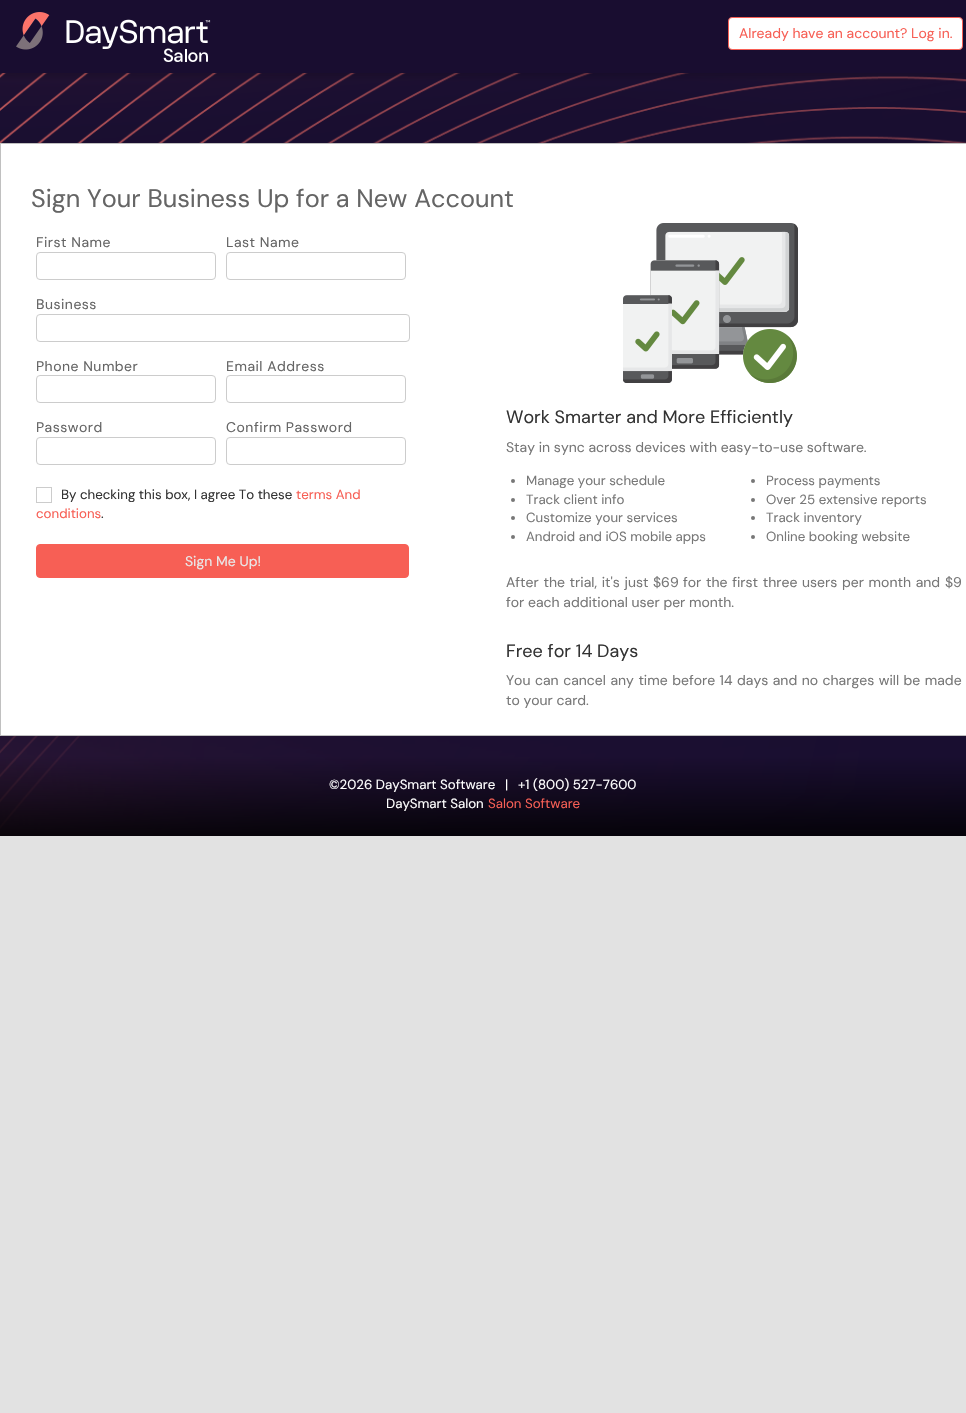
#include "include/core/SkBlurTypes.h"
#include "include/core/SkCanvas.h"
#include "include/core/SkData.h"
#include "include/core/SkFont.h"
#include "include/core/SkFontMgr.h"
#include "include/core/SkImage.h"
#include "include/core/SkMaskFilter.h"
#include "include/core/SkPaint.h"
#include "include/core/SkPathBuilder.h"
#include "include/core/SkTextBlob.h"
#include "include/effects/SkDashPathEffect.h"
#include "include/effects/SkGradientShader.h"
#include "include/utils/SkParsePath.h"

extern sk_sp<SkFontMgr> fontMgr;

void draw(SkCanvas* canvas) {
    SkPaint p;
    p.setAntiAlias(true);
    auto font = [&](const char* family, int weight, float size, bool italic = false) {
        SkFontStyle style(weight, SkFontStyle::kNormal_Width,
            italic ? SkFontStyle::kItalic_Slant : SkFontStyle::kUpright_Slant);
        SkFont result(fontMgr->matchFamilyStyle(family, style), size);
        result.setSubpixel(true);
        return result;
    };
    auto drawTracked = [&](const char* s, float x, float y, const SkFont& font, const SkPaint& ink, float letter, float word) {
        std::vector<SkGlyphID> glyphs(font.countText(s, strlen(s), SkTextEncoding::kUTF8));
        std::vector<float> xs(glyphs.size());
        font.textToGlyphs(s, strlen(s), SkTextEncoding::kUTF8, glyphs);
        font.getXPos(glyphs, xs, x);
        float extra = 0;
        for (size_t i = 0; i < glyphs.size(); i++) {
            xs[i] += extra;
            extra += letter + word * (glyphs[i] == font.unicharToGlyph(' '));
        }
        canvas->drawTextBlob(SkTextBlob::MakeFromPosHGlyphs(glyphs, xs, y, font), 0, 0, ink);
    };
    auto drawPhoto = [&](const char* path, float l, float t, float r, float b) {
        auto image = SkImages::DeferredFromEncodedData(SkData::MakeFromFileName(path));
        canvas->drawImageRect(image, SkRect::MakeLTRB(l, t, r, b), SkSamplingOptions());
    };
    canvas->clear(0xFFE2E2E2);
    drawPhoto("media/1.png", 0, 73, 966, 836);
    p.setColor(0x29000000);
    p.setMaskFilter(SkMaskFilter::MakeBlur(kNormal_SkBlurStyle, 3));
    canvas->drawRect(SkRect::MakeLTRB(0, 3, 966, 76), p);
    p.setMaskFilter(nullptr);
    p.setColor(0xFF190D30);
    canvas->drawRect(SkRect::MakeLTRB(0, 0, 966, 73), p);
    drawPhoto("media/2.png", 16, 12, 211, 62);
    p.setColor(0xFFFFFFFF);
    canvas->drawRoundRect(SkRect::MakeLTRB(728.5f, 17.5f, 962.5f, 49.5f), 3.5f, 3.5f, p);
    p.setStyle(SkPaint::kStroke_Style);
    p.setStrokeWidth(1);
    p.setColor(0xFFF75F55);
    canvas->drawRoundRect(SkRect::MakeLTRB(728.5f, 17.5f, 962.5f, 49.5f), 3.5f, 3.5f, p);
    auto font1 = font("DM Sans", 400, 14);
    p.setStyle(SkPaint::kFill_Style);
    canvas->drawString("Already have an account? Log in.", 739, 38, font1, p);
    p.setColor(0xFFFFFFFF);
    canvas->drawRect(SkRect::MakeLTRB(0.5f, 143.5f, 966.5f, 735.5f), p);
    p.setStyle(SkPaint::kStroke_Style);
    p.setColor(0xFFC0C0C0);
    canvas->drawRect(SkRect::MakeLTRB(0.5f, 143.5f, 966.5f, 735.5f), p);
    auto font2 = font("DM Sans", 400, 25.3f);
    p.setStyle(SkPaint::kFill_Style);
    p.setColor(0xFF656565);
    canvas->drawString("Sign Your Business Up for a New Account", 31, 207, font2, p);
    drawTracked("First Name", 36, 247, font1, p, 0.5f, 0);
    p.setStyle(SkPaint::kStroke_Style);
    p.setColor(0xFFCCCCCC);
    canvas->drawRoundRect(SkRect::MakeLTRB(36.5f, 252.5f, 215.5f, 279.5f), 3.5f, 3.5f, p);
    p.setStyle(SkPaint::kFill_Style);
    p.setColor(0xFF656565);
    drawTracked("Last Name", 226, 247, font1, p, 0.5f, 0);
    p.setStyle(SkPaint::kStroke_Style);
    p.setColor(0xFFCCCCCC);
    canvas->drawRoundRect(SkRect::MakeLTRB(226.5f, 252.5f, 405.5f, 279.5f), 3.5f, 3.5f, p);
    p.setStyle(SkPaint::kFill_Style);
    p.setColor(0xFF656565);
    drawTracked("Business", 36, 309, font1, p, 0.5f, 0);
    p.setStyle(SkPaint::kStroke_Style);
    p.setColor(0xFFCCCCCC);
    canvas->drawRoundRect(SkRect::MakeLTRB(36.5f, 314.5f, 409.5f, 341.5f), 3.5f, 3.5f, p);
    p.setStyle(SkPaint::kFill_Style);
    p.setColor(0xFF656565);
    drawTracked("Phone Number", 36, 371, font1, p, 0.5f, 0);
    p.setStyle(SkPaint::kStroke_Style);
    p.setColor(0xFFCCCCCC);
    canvas->drawRoundRect(SkRect::MakeLTRB(36.5f, 375.5f, 215.5f, 402.5f), 3.5f, 3.5f, p);
    p.setStyle(SkPaint::kFill_Style);
    p.setColor(0xFF656565);
    drawTracked("Email Address", 226, 371, font1, p, 0.5f, 0);
    p.setStyle(SkPaint::kStroke_Style);
    p.setColor(0xFFCCCCCC);
    canvas->drawRoundRect(SkRect::MakeLTRB(226.5f, 375.5f, 405.5f, 402.5f), 3.5f, 3.5f, p);
    p.setStyle(SkPaint::kFill_Style);
    p.setColor(0xFF656565);
    drawTracked("Password", 36, 432, font1, p, 0.5f, 0);
    p.setStyle(SkPaint::kStroke_Style);
    p.setColor(0xFFCCCCCC);
    canvas->drawRoundRect(SkRect::MakeLTRB(36.5f, 437.5f, 215.5f, 464.5f), 3.5f, 3.5f, p);
    p.setStyle(SkPaint::kFill_Style);
    p.setColor(0xFF656565);
    drawTracked("Confirm Password", 226, 432, font1, p, 0.5f, 0);
    p.setStyle(SkPaint::kStroke_Style);
    p.setColor(0xFFCCCCCC);
    canvas->drawRoundRect(SkRect::MakeLTRB(226.5f, 437.5f, 405.5f, 464.5f), 3.5f, 3.5f, p);
    canvas->drawRect(SkRect::MakeLTRB(36.5f, 487.5f, 51.5f, 502.5f), p);
    auto font3 = font("DM Sans", 400, 13.3f);
    p.setStyle(SkPaint::kFill_Style);
    p.setColor(0xFF333333);
    canvas->drawString("By checking this box, I agree To these", 61, 499, font3, p);
    p.setColor(0xFFF75F55);
    canvas->drawString("terms And", 296, 499, font3, p);
    canvas->drawString("conditions", 36, 518, font3, p);
    p.setColor(0xFF333333);
    canvas->drawString(".", 101, 518, font3, p);
    p.setColor(0xFFF75F55);
    canvas->drawRoundRect(SkRect::MakeLTRB(36.5f, 544.5f, 408.5f, 577.5f), 3.5f, 3.5f, p);
    p.setStyle(SkPaint::kStroke_Style);
    canvas->drawRoundRect(SkRect::MakeLTRB(36.5f, 544.5f, 408.5f, 577.5f), 3.5f, 3.5f, p);
    p.setStyle(SkPaint::kFill_Style);
    p.setColor(0xFFE9E9E9);
    canvas->drawString("Sign Me Up!", 185, 566, font1, p);
    drawPhoto("media/3.png", 623, 223, 798, 383);
    auto font4 = font("DM Sans", 400, 18);
    p.setColor(0xFF333333);
    canvas->drawString("Work Smarter and More Efficiently", 506, 423, font4, p);
    p.setColor(0xFF777777);
    canvas->drawString("Stay in sync across devices with easy-to-use software.", 506, 452, font1, p);
    canvas->drawCircle(513, 481, 2, p);
    canvas->drawString("Manage your schedule", 526, 485, font3, p);
    canvas->drawCircle(513, 500, 2, p);
    canvas->drawString("Track client info", 526, 504, font3, p);
    canvas->drawCircle(513, 518, 2, p);
    canvas->drawString("Customize your services", 526, 522, font3, p);
    canvas->drawCircle(513, 537, 2, p);
    canvas->drawString("Android and iOS mobile apps", 526, 541, font3, p);
    canvas->drawCircle(753, 481, 2, p);
    canvas->drawString("Process payments", 766, 485, font3, p);
    canvas->drawCircle(753, 500, 2, p);
    canvas->drawString("Over 25 extensive reports", 766, 504, font3, p);
    canvas->drawCircle(753, 518, 2, p);
    canvas->drawString("Track inventory", 766, 522, font3, p);
    canvas->drawCircle(753, 537, 2, p);
    canvas->drawString("Online booking website", 766, 541, font3, p);
    drawTracked("After the trial, it's just", 506, 587, font1, p, 0, 1);
    canvas->drawString("$69", 653, 587, font1, p);
    drawTracked("for the first three users per month and", 683, 587, font1, p, 0, 1);
    canvas->drawString("$9", 945, 587, font1, p);
    canvas->drawString("for each additional user per month.", 506, 607, font1, p);
    p.setColor(0xFF333333);
    canvas->drawString("Free for 14 Days", 506, 657, font4, p);
    p.setColor(0xFF777777);
    drawTracked("You can cancel any time before 14 days and no charges will be made", 506, 685, font1, p, 0, 0.8f);
    canvas->drawString("to your card.", 506, 705, font1, p);
    p.setColor(0xFFFFFFFF);
    {
        const struct { const char* s; float x, y; } items[] = {
            {"©2026 DaySmart Software", 329, 789},
            {"|", 505, 789},
            {"+1 (800) 527-7600", 518, 789},
            {"DaySmart Salon", 386, 808},
        };
        for (auto [s, x, y] : items) {
            canvas->drawString(s, x, y, font3, p);
        }
    }
    p.setColor(0xFFF75F55);
    canvas->drawString("Salon Software", 488, 808, font3, p);
}
